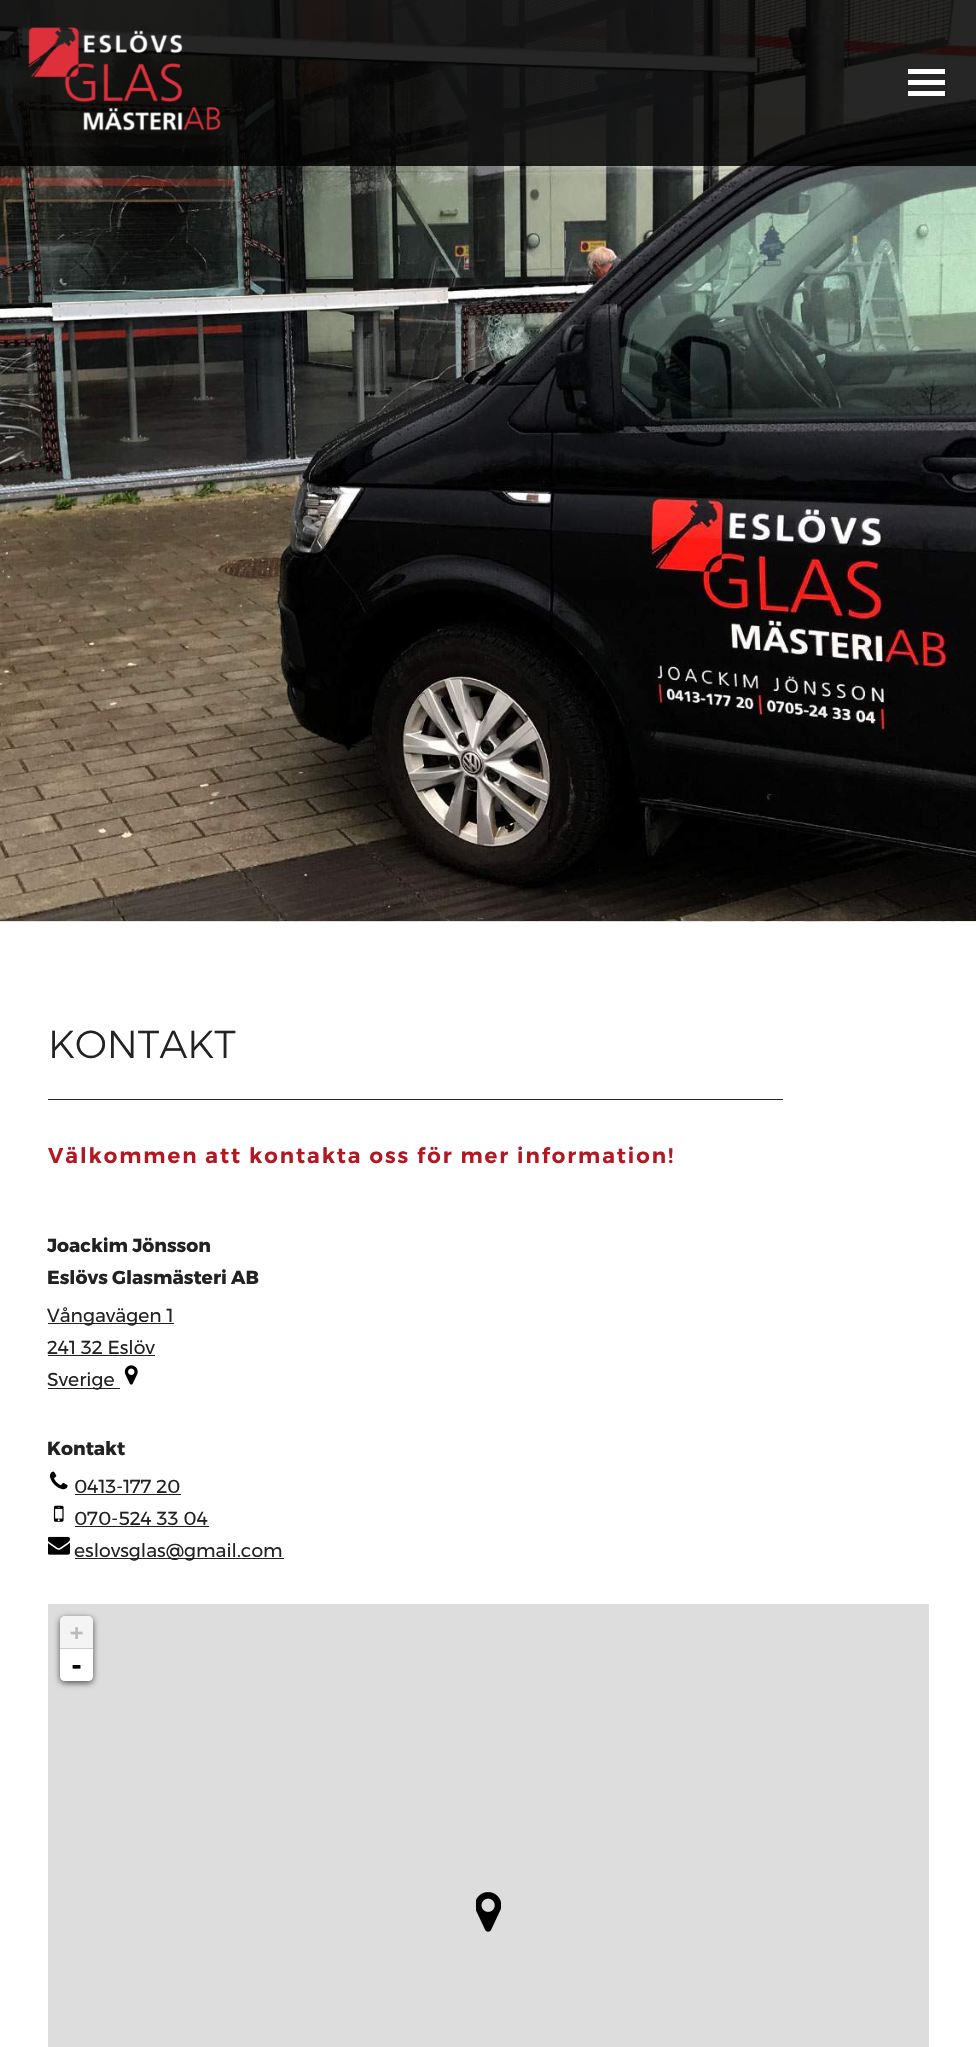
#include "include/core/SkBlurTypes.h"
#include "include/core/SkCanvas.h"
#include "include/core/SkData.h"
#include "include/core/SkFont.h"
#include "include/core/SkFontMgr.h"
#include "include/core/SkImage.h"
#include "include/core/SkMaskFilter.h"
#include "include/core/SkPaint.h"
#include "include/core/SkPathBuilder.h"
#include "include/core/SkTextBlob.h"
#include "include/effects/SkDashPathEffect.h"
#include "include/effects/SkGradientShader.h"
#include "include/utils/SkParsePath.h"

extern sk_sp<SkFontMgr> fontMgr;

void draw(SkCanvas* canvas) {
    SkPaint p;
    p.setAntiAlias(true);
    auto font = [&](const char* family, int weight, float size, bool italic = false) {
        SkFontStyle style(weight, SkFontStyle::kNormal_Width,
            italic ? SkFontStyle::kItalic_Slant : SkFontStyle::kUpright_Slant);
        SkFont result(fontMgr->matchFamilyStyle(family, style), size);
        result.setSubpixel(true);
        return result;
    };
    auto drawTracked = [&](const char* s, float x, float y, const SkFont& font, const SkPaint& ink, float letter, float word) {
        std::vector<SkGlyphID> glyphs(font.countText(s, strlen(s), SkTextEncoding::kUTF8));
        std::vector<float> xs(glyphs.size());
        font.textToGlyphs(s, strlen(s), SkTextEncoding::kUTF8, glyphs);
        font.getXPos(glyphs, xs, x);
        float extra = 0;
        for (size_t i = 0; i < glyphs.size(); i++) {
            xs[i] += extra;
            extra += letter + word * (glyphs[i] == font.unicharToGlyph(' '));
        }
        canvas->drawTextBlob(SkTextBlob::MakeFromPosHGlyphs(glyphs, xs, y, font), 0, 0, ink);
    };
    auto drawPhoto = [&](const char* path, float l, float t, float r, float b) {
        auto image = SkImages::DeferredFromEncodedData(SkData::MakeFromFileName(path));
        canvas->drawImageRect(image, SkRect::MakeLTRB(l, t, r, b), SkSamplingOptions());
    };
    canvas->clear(0xFFFFFFFF);
    drawPhoto("media/2.png", 0, 0, 976, 922);
    p.setColor(0xD9000000);
    canvas->drawRect(SkRect::MakeLTRB(0, 0, 481, 166), p);
    drawPhoto("media/1.png", 28, 27, 221, 131);
    {
        const struct { float l, t, r, b; SkColor color; } items[] = {
            {481, 0, 976, 166, 0xD9000000},
            {908, 69, 945, 74, 0xFFFFFFFF},
            {908, 80, 945, 85, 0xFFFFFFFF},
            {908, 91, 945, 96, 0xFFFFFFFF},
        };
        for (auto [l, t, r, b, color] : items) {
            p.setColor(color);
            canvas->drawRect(SkRect::MakeLTRB(l, t, r, b), p);
        }
    }
    auto font1 = font("Montserrat", 300, 39);
    p.setColor(0xFF222222);
    canvas->drawString("KONTAKT", 48, 1058, font1, p);
    p.setColor(0xFF2B2723);
    canvas->drawRect(SkRect::MakeLTRB(48, 1099, 783, 1100), p);
    auto font2 = font("Montserrat", 600, 21.35f);
    p.setColor(0xFFB21822);
    drawTracked("Välkommen att kontakta oss för mer information!", 48, 1163, font2, p, 1.95f, 0);
    auto font3 = font("Montserrat", 700, 18.75f);
    p.setColor(0xFF222222);
    canvas->drawString("Joackim Jönsson", 47, 1252, font3, p);
    canvas->drawString("Eslövs Glasmästeri AB", 47, 1284, font3, p);
    canvas->drawRect(SkRect::MakeLTRB(48, 1323, 174, 1324), p);
    auto font4 = font("Montserrat", 400, 18.75f);
    canvas->drawString("Vångavägen 1", 47, 1322, font4, p);
    canvas->drawString("241 32 Eslöv", 47, 1354, font4, p);
    canvas->drawRect(SkRect::MakeLTRB(48, 1355, 155, 1356), p);
    canvas->drawRect(SkRect::MakeLTRB(48, 1388, 120, 1389), p);
    canvas->drawString("Sverige", 47, 1386, font4, p);
    drawPhoto("media/3.png", 124, 1365, 138, 1385);
    canvas->drawString("Kontakt", 47, 1455, font3, p);
    drawPhoto("media/4.png", 49, 1471, 68, 1490);
    canvas->drawString("0413-177 20", 74, 1493, font4, p);
    canvas->drawRect(SkRect::MakeLTRB(75, 1494, 181, 1495), p);
    drawPhoto("media/5.png", 53, 1505, 64, 1522);
    canvas->drawString("070-524 33 04", 74, 1525, font4, p);
    canvas->drawRect(SkRect::MakeLTRB(75, 1526, 209, 1527), p);
    drawPhoto("media/6.png", 48, 1536, 70, 1555);
    canvas->drawRect(SkRect::MakeLTRB(75, 1558, 284, 1559), p);
    canvas->drawString("eslovsglas@gmail.com", 74, 1557, font4, p);
    p.setColor(0xFFDDDDDD);
    canvas->drawRect(SkRect::MakeLTRB(48, 1604, 929, 2047), p);
    p.setColor(0xA6000000);
    p.setMaskFilter(SkMaskFilter::MakeBlur(kNormal_SkBlurStyle, 3));
    canvas->drawRoundRect(SkRect::MakeLTRB(60, 1618, 93, 1683), 5, 5, p);
    p.setMaskFilter(nullptr);
    p.setColor(0xFFF4F4F4);
    canvas->drawPath(SkPathBuilder().moveTo(65, 1616).lineTo(88, 1616).cubicTo(91, 1616, 93, 1618, 93, 1621).lineTo(93, 1649).lineTo(60, 1649).lineTo(60, 1621).cubicTo(60, 1618, 62, 1616, 65, 1616).close().detach(), p);
    p.setColor(0xFFCCCCCC);
    canvas->drawRect(SkRect::MakeLTRB(60, 1648, 93, 1649), p);
    auto font5 = font("DejaVu Sans Mono", 700, 22);
    p.setColor(0xFFBBBBBB);
    canvas->drawString("+", 70, 1640, font5, p);
    p.setColor(0xFFFFFFFF);
    canvas->drawPath(SkPathBuilder().moveTo(60, 1649).lineTo(93, 1649).lineTo(93, 1676).cubicTo(93, 1679, 91, 1681, 88, 1681).lineTo(65, 1681).cubicTo(62, 1681, 60, 1679, 60, 1676).close().detach(), p);
    auto font6 = font("DejaVu Sans Mono", 700, 25);
    p.setColor(0xFF000000);
    canvas->drawString("-", 69, 1674, font6, p);
    drawPhoto("media/7.png", 476, 1892, 501, 1932);
}
